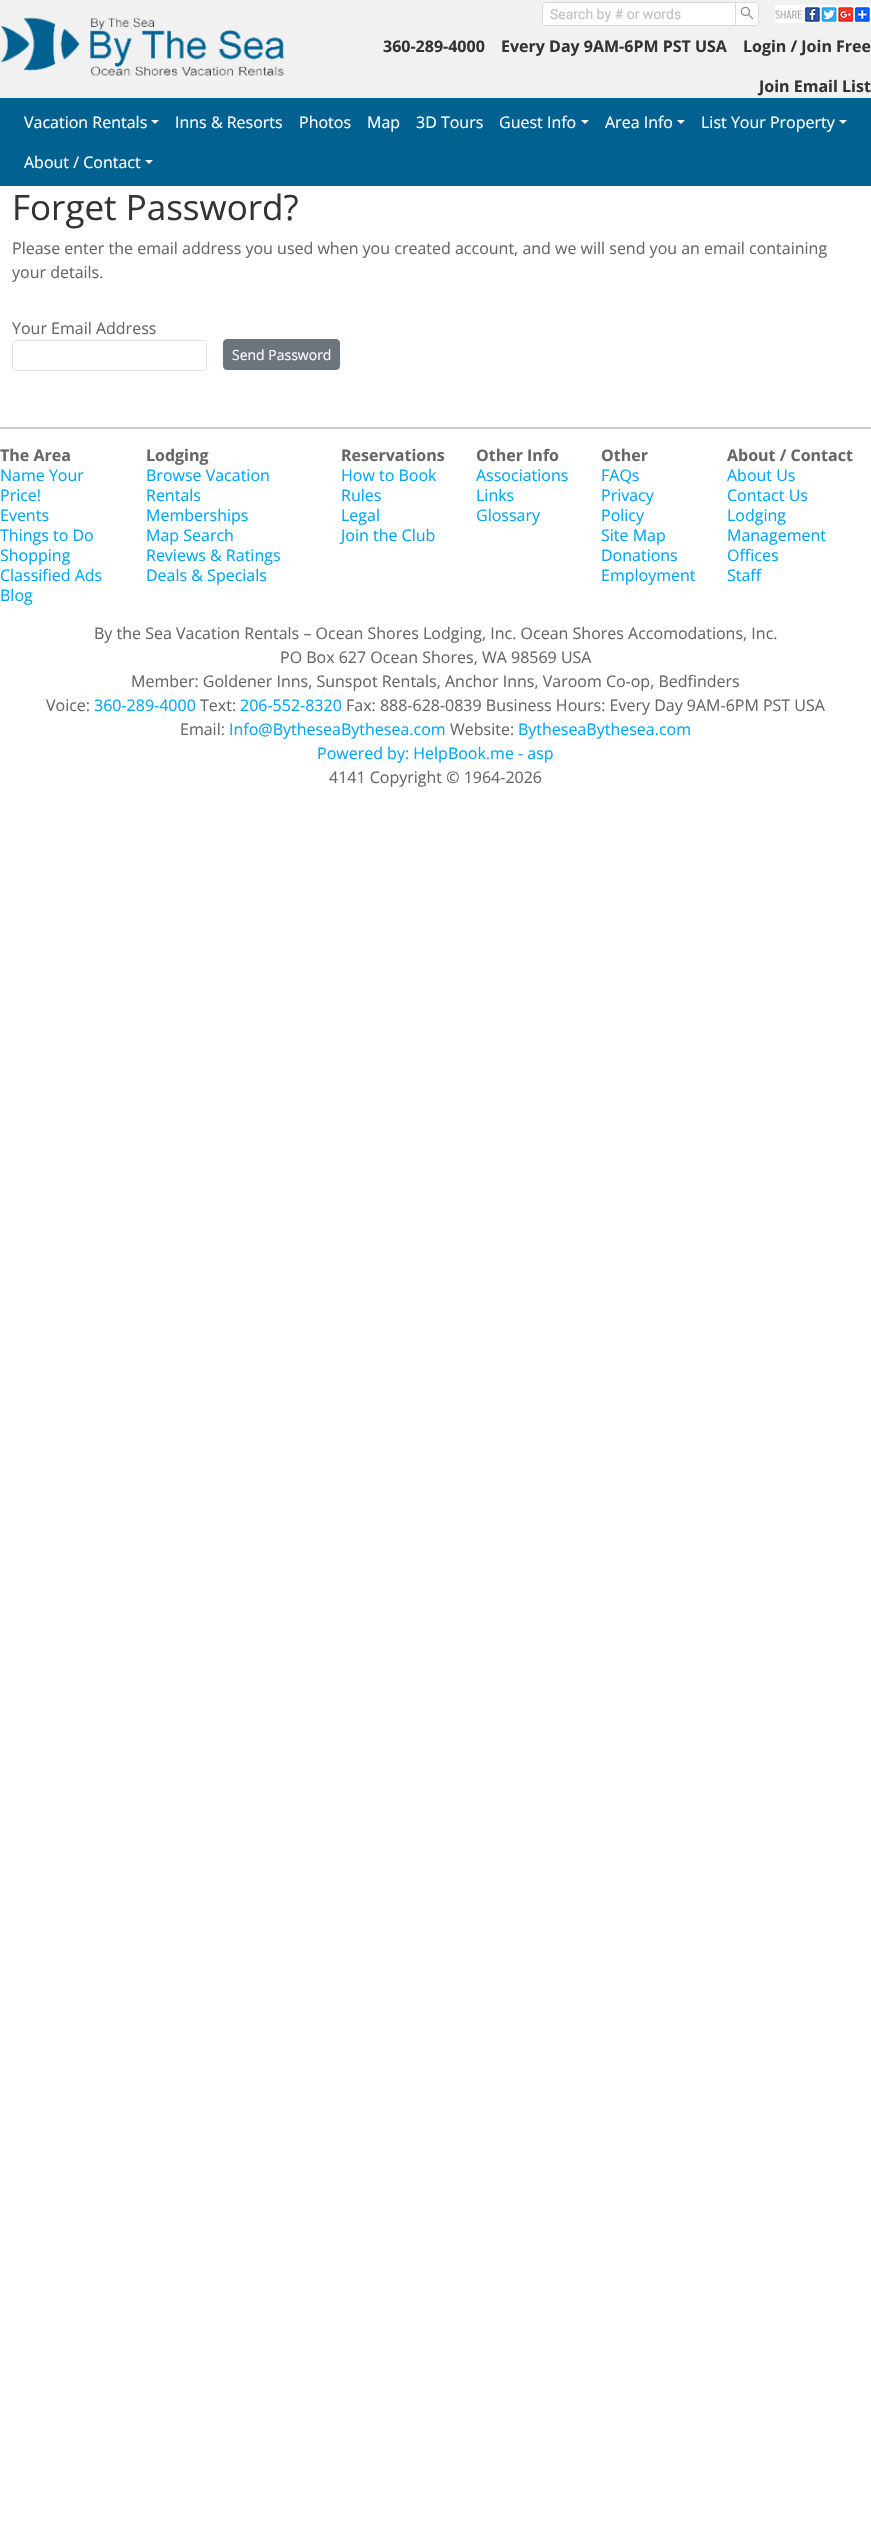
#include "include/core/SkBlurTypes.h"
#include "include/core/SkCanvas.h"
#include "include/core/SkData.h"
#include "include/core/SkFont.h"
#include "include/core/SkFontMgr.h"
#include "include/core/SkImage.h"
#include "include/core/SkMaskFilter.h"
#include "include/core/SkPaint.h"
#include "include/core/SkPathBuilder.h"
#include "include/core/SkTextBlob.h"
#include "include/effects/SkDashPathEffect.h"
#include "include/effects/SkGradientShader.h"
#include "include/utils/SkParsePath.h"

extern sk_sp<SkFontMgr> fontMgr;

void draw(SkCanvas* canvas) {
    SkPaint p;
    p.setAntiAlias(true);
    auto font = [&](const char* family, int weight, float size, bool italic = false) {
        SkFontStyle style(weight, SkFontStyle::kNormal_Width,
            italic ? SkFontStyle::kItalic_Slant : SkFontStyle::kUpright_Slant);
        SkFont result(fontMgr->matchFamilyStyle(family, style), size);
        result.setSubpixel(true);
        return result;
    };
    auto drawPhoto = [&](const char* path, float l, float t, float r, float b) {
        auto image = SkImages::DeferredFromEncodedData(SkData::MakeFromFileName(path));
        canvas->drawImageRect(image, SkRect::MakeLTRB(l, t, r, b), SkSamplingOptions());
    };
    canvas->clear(0xFFFFFFFF);
    p.setColor(0xFFF1F1F1);
    canvas->drawRect(SkRect::MakeLTRB(0, 0, 871, 98), p);
    drawPhoto("media/1.png", 1, 17, 285, 76);
    p.setColor(0xFFFFFFFF);
    canvas->drawPath(SkPathBuilder().moveTo(546, 2.5f).lineTo(735.5f, 2.5f).lineTo(735.5f, 25.5f).lineTo(546, 25.5f).cubicTo(544, 25.5f, 542.5f, 24, 542.5f, 22).lineTo(542.5f, 6).cubicTo(542.5f, 4, 544, 2.5f, 546, 2.5f).close().detach(), p);
    p.setStyle(SkPaint::kStroke_Style);
    p.setStrokeWidth(1);
    p.setColor(0xFFD9D9D9);
    canvas->drawPath(SkPathBuilder().moveTo(546, 2.5f).lineTo(735.5f, 2.5f).lineTo(735.5f, 25.5f).lineTo(546, 25.5f).cubicTo(544, 25.5f, 542.5f, 24, 542.5f, 22).lineTo(542.5f, 6).cubicTo(542.5f, 4, 544, 2.5f, 546, 2.5f).close().detach(), p);
    auto font1 = font("Roboto", 400, 14);
    p.setStyle(SkPaint::kFill_Style);
    p.setColor(0xFFBFBFBF);
    canvas->drawString("Search by # or words", 550, 19, font1, p);
    p.setColor(0xFFFFFFFF);
    canvas->drawPath(SkPathBuilder().moveTo(735.5f, 2.5f).lineTo(755, 2.5f).cubicTo(757, 2.5f, 758.5f, 4, 758.5f, 6).lineTo(758.5f, 22).cubicTo(758.5f, 24, 757, 25.5f, 755, 25.5f).lineTo(735.5f, 25.5f).close().detach(), p);
    p.setStyle(SkPaint::kStroke_Style);
    p.setColor(0xFFD9D9D9);
    canvas->drawPath(SkPathBuilder().moveTo(735.5f, 2.5f).lineTo(755, 2.5f).cubicTo(757, 2.5f, 758.5f, 4, 758.5f, 6).lineTo(758.5f, 22).cubicTo(758.5f, 24, 757, 25.5f, 755, 25.5f).lineTo(735.5f, 25.5f).close().detach(), p);
    drawPhoto("media/2.png", 740, 6, 754, 20);
    drawPhoto("media/3.png", 775, 5, 871, 23);
    auto font2 = font("Open Sans", 700, 16);
    p.setStyle(SkPaint::kFill_Style);
    p.setColor(0xFF333333);
    {
        const struct { const char* s; float x, y; } items[] = {
            {"360-289-4000", 383, 52},
            {"Every Day 9AM-6PM PST USA", 501, 52},
            {"Login / Join Free", 743, 52},
            {"Join Email List", 759, 92},
        };
        for (auto [s, x, y] : items) {
            canvas->drawString(s, x, y, font2, p);
        }
    }
    p.setColor(0xFF016191);
    canvas->drawRect(SkRect::MakeLTRB(0, 98, 871, 186), p);
    auto font3 = font("Open Sans", 400, 16);
    p.setColor(0xFFFFFFFF);
    canvas->drawString("Vacation Rentals", 24, 128, font3, p);
    canvas->drawPath(SkPathBuilder().moveTo(151, 120).lineTo(159, 120).lineTo(155, 124).close().detach(), p);
    {
        const struct { const char* s; float x, y; } items[] = {
            {"Inns & Resorts", 175, 128},
            {"Photos", 299, 128},
            {"Map", 367, 128},
            {"3D Tours", 416, 128},
            {"Guest Info", 499, 128},
        };
        for (auto [s, x, y] : items) {
            canvas->drawString(s, x, y, font3, p);
        }
    }
    canvas->drawPath(SkPathBuilder().moveTo(581, 120).lineTo(589, 120).lineTo(585, 124).close().detach(), p);
    canvas->drawString("Area Info", 605, 128, font3, p);
    canvas->drawPath(SkPathBuilder().moveTo(677, 120).lineTo(685, 120).lineTo(681, 124).close().detach(), p);
    canvas->drawString("List Your Property", 701, 128, font3, p);
    canvas->drawPath(SkPathBuilder().moveTo(839, 120).lineTo(847, 120).lineTo(843, 124).close().detach(), p);
    canvas->drawString("About / Contact", 24, 168, font3, p);
    canvas->drawPath(SkPathBuilder().moveTo(145, 160).lineTo(153, 160).lineTo(149, 164).close().detach(), p);
    auto font4 = font("Open Sans", 400, 35);
    p.setColor(0xFF333333);
    canvas->drawString("Forget Password?", 12, 220, font4, p);
    p.setColor(0xFF666666);
    {
        const struct { const char* s; float x, y; } items[] = {
            {"Please enter the email address you used when you created account, and we will send you an email containing", 12, 254},
            {"your details.", 12, 278},
            {"Your Email Address", 12, 334},
        };
        for (auto [s, x, y] : items) {
            canvas->drawString(s, x, y, font3, p);
        }
    }
    p.setStyle(SkPaint::kStroke_Style);
    p.setColor(0xFFDEE2E6);
    canvas->drawRoundRect(SkRect::MakeLTRB(12.5f, 340.5f, 206.5f, 370.5f), 3.5f, 3.5f, p);
    p.setStyle(SkPaint::kFill_Style);
    p.setColor(0xFF6C757D);
    canvas->drawRoundRect(SkRect::MakeLTRB(223.5f, 339.5f, 339.5f, 369.5f), 3.5f, 3.5f, p);
    p.setStyle(SkPaint::kStroke_Style);
    canvas->drawRoundRect(SkRect::MakeLTRB(223.5f, 339.5f, 339.5f, 369.5f), 3.5f, 3.5f, p);
    auto font5 = font("Open Sans", 400, 14);
    p.setStyle(SkPaint::kFill_Style);
    p.setColor(0xFFFFFFFF);
    canvas->drawString("Send Password", 232, 360, font5, p);
    p.setColor(0xFFCCCCCC);
    canvas->drawRect(SkRect::MakeLTRB(0, 427, 871, 429), p);
    p.setColor(0xFF666666);
    canvas->drawString("The Area", 0, 461, font2, p);
    p.setColor(0xFF00A7F6);
    {
        const struct { const char* s; float x, y; } items[] = {
            {"Name Your", 0, 481},
            {"Price!", 0, 501},
            {"Events", 0, 521},
            {"Things to Do", 0, 541},
            {"Shopping", 0, 561},
            {"Classified Ads", 0, 581},
            {"Blog", 0, 601},
        };
        for (auto [s, x, y] : items) {
            canvas->drawString(s, x, y, font3, p);
        }
    }
    p.setColor(0xFF666666);
    canvas->drawString("Lodging", 146, 461, font2, p);
    p.setColor(0xFF00A7F6);
    {
        const struct { const char* s; float x, y; } items[] = {
            {"Browse Vacation", 146, 481},
            {"Rentals", 146, 501},
            {"Memberships", 146, 521},
            {"Map Search", 146, 541},
            {"Reviews & Ratings", 146, 561},
            {"Deals & Specials", 146, 581},
        };
        for (auto [s, x, y] : items) {
            canvas->drawString(s, x, y, font3, p);
        }
    }
    p.setColor(0xFF666666);
    canvas->drawString("Reservations", 341, 461, font2, p);
    p.setColor(0xFF00A7F6);
    {
        const struct { const char* s; float x, y; } items[] = {
            {"How to Book", 341, 481},
            {"Rules", 341, 501},
            {"Legal", 341, 521},
            {"Join the Club", 341, 541},
        };
        for (auto [s, x, y] : items) {
            canvas->drawString(s, x, y, font3, p);
        }
    }
    p.setColor(0xFF666666);
    canvas->drawString("Other Info", 476, 461, font2, p);
    p.setColor(0xFF00A7F6);
    {
        const struct { const char* s; float x, y; } items[] = {
            {"Associations", 476, 481},
            {"Links", 476, 501},
            {"Glossary", 476, 521},
        };
        for (auto [s, x, y] : items) {
            canvas->drawString(s, x, y, font3, p);
        }
    }
    p.setColor(0xFF666666);
    canvas->drawString("Other", 601, 461, font2, p);
    p.setColor(0xFF00A7F6);
    {
        const struct { const char* s; float x, y; } items[] = {
            {"FAQs", 601, 481},
            {"Privacy", 601, 501},
            {"Policy", 601, 521},
            {"Site Map", 601, 541},
            {"Donations", 601, 561},
            {"Employment", 601, 581},
        };
        for (auto [s, x, y] : items) {
            canvas->drawString(s, x, y, font3, p);
        }
    }
    p.setColor(0xFF666666);
    canvas->drawString("About / Contact", 727, 461, font2, p);
    p.setColor(0xFF00A7F6);
    {
        const struct { const char* s; float x, y; } items[] = {
            {"About Us", 727, 481},
            {"Contact Us", 727, 501},
            {"Lodging", 727, 521},
            {"Management", 727, 541},
            {"Offices", 727, 561},
            {"Staff", 727, 581},
        };
        for (auto [s, x, y] : items) {
            canvas->drawString(s, x, y, font3, p);
        }
    }
    p.setColor(0xFF666666);
    {
        const struct { const char* s; float x, y; } items[] = {
            {"By the Sea Vacation Rentals – Ocean Shores Lodging, Inc. Ocean Shores Accomodations, Inc.", 94, 639},
            {"PO Box 627 Ocean Shores, WA 98569 USA", 280, 663},
            {"Member: Goldener Inns, Sunspot Rentals, Anchor Inns, Varoom Co-op, Bedfinders", 131, 687},
            {"Voice:", 46, 711},
        };
        for (auto [s, x, y] : items) {
            canvas->drawString(s, x, y, font3, p);
        }
    }
    p.setColor(0xFF00A7F6);
    canvas->drawString("360-289-4000", 94, 711, font3, p);
    p.setColor(0xFF666666);
    canvas->drawString("Text:", 200, 711, font3, p);
    p.setColor(0xFF00A7F6);
    canvas->drawString("206-552-8320", 240, 711, font3, p);
    p.setColor(0xFF666666);
    canvas->drawString("Fax: 888-628-0839 Business Hours: Every Day 9AM-6PM PST USA", 346, 711, font3, p);
    canvas->drawString("Email:", 180, 735, font3, p);
    p.setColor(0xFF00A7F6);
    canvas->drawString("Info@BytheseaBythesea.com", 229, 735, font3, p);
    p.setColor(0xFF666666);
    canvas->drawString("Website:", 450, 735, font3, p);
    p.setColor(0xFF00A7F6);
    canvas->drawString("BytheseaBythesea.com", 518, 735, font3, p);
    canvas->drawString("Powered by: HelpBook.me - asp", 317, 759, font3, p);
    p.setColor(0xFF666666);
    canvas->drawString("4141 Copyright © 1964-2026", 329, 783, font3, p);
}
